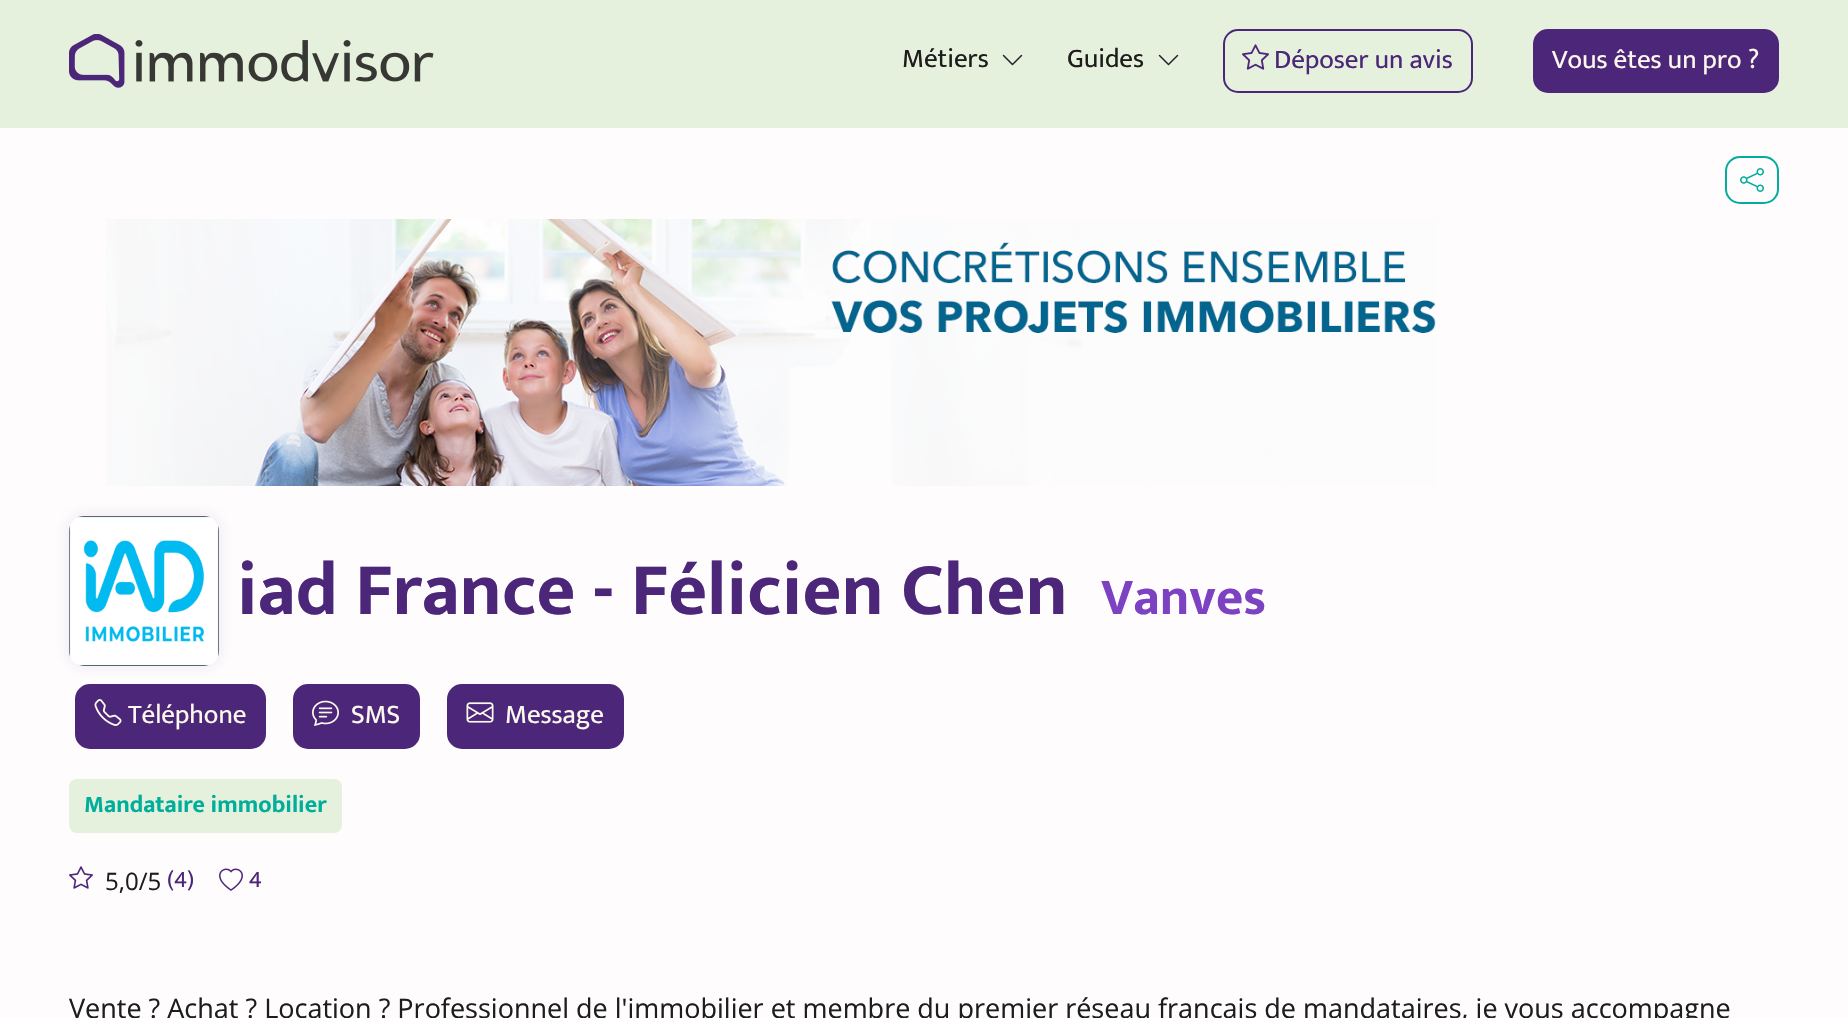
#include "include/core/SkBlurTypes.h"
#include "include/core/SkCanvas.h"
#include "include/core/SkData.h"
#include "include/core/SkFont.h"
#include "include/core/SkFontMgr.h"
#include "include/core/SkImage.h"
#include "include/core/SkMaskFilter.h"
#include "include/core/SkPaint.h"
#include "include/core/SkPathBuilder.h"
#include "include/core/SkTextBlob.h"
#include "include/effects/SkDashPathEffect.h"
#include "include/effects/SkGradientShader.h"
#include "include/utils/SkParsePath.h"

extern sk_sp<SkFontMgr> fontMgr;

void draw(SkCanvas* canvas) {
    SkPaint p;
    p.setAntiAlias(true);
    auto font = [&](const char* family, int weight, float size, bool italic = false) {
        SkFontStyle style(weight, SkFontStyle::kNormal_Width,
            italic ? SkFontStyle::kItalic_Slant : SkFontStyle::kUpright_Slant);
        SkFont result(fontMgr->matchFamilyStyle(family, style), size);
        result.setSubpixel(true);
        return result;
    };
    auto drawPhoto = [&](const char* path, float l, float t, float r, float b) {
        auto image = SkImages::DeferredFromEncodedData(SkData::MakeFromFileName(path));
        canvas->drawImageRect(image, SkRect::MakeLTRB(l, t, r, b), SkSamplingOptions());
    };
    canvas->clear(0xFFFEFCFD);
    p.setColor(0xFFE6F1DD);
    canvas->drawRect(SkRect::MakeLTRB(0, 0, 1848, 128), p);
    drawPhoto("media/1.png", 69, 34, 434, 88);
    auto font1 = font("Mukta", 400, 27);
    p.setColor(0xFF1D1D1B);
    canvas->drawString("Métiers", 902, 67, font1, p);
    p.setStyle(SkPaint::kStroke_Style);
    p.setStrokeWidth(1.5f);
    p.setStrokeCap(SkPaint::kRound_Cap);
    p.setStrokeJoin(SkPaint::kRound_Join);
    p.setColor(0xFF212529);
    canvas->drawPath(SkPathBuilder().moveTo(1003.5f, 55.5f).lineTo(1012.5f, 64.5f).lineTo(1021.5f, 55.5f).detach(), p);
    p.setStyle(SkPaint::kFill_Style);
    p.setColor(0xFF1D1D1B);
    canvas->drawString("Guides", 1067, 67, font1, p);
    p.setStyle(SkPaint::kStroke_Style);
    p.setColor(0xFF212529);
    canvas->drawPath(SkPathBuilder().moveTo(1159.5f, 55.5f).lineTo(1168.5f, 64.5f).lineTo(1177.5f, 55.5f).detach(), p);
    p.setStrokeWidth(2);
    p.setStrokeCap(SkPaint::kButt_Cap);
    p.setStrokeJoin(SkPaint::kMiter_Join);
    p.setColor(0xFF4C2779);
    canvas->drawRoundRect(SkRect::MakeLTRB(1224, 30, 1472, 92), 14, 14, p);
    drawPhoto("media/2.png", 1242, 44, 1269, 70);
    p.setStyle(SkPaint::kFill_Style);
    canvas->drawString("Déposer un avis", 1274, 68, font1, p);
    canvas->drawRoundRect(SkRect::MakeLTRB(1534, 30, 1778, 92), 14, 14, p);
    p.setStyle(SkPaint::kStroke_Style);
    canvas->drawRoundRect(SkRect::MakeLTRB(1534, 30, 1778, 92), 14, 14, p);
    p.setStyle(SkPaint::kFill_Style);
    p.setColor(0xFFFEF9EF);
    canvas->drawString("Vous êtes un pro ?", 1552, 68, font1, p);
    p.setStyle(SkPaint::kStroke_Style);
    p.setColor(0xFF00AE9B);
    canvas->drawRoundRect(SkRect::MakeLTRB(1726, 157, 1778, 203), 14, 14, p);
    drawPhoto("media/3.png", 1740, 168, 1764, 192);
    drawPhoto("media/4.png", 106, 219, 1436, 486);
    p.setStyle(SkPaint::kFill_Style);
    p.setColor(0x1A4C2779);
    p.setMaskFilter(SkMaskFilter::MakeBlur(kNormal_SkBlurStyle, 7.5f));
    canvas->drawRoundRect(SkRect::MakeLTRB(69, 516, 219, 666), 15, 15, p);
    p.setMaskFilter(nullptr);
    drawPhoto("media/5.png", 69, 516, 219, 666);
    auto font2 = font("Mukta", 700, 75);
    p.setColor(0xFF4C2779);
    canvas->drawString("iad France - Félicien Chen", 237, 614, font2, p);
    auto font3 = font("Mukta", 700, 52.5f);
    p.setColor(0xFF7C42C2);
    canvas->drawString("Vanves", 1101, 614, font3, p);
    p.setColor(0xFF4C2779);
    canvas->drawRoundRect(SkRect::MakeLTRB(76, 685, 265, 748), 14, 14, p);
    p.setStyle(SkPaint::kStroke_Style);
    canvas->drawRoundRect(SkRect::MakeLTRB(76, 685, 265, 748), 14, 14, p);
    drawPhoto("media/6.png", 94, 699, 122, 726);
    p.setStyle(SkPaint::kFill_Style);
    p.setColor(0xFFFEF9EF);
    canvas->drawString("Téléphone", 128, 723, font1, p);
    p.setColor(0xFF4C2779);
    canvas->drawRoundRect(SkRect::MakeLTRB(294, 685, 419, 748), 14, 14, p);
    p.setStyle(SkPaint::kStroke_Style);
    canvas->drawRoundRect(SkRect::MakeLTRB(294, 685, 419, 748), 14, 14, p);
    drawPhoto("media/7.png", 312, 700, 339, 726);
    p.setStyle(SkPaint::kFill_Style);
    p.setColor(0xFFFEF9EF);
    canvas->drawString("SMS", 351, 723, font1, p);
    p.setColor(0xFF4C2779);
    canvas->drawRoundRect(SkRect::MakeLTRB(448, 685, 623, 748), 14, 14, p);
    p.setStyle(SkPaint::kStroke_Style);
    canvas->drawRoundRect(SkRect::MakeLTRB(448, 685, 623, 748), 14, 14, p);
    drawPhoto("media/8.png", 466, 702, 494, 723);
    p.setStyle(SkPaint::kFill_Style);
    p.setColor(0xFFFEF9EF);
    canvas->drawString("Message", 505, 723, font1, p);
    p.setColor(0xFFE6F1DD);
    canvas->drawRoundRect(SkRect::MakeLTRB(69, 779, 342, 833), 8, 8, p);
    auto font4 = font("Mukta", 700, 24);
    p.setColor(0xFF00AE9B);
    canvas->drawString("Mandataire immobilier", 84, 812, font4, p);
    drawPhoto("media/9.png", 69, 866, 93, 889);
    auto font5 = font("Open Sans", 400, 24);
    p.setColor(0xFF1D1D1B);
    canvas->drawString("5,0/5", 105, 890, font5, p);
    auto font6 = font("Mukta", 400, 24);
    p.setColor(0xFF4C2779);
    canvas->drawString("(4)", 167, 887, font6, p);
    drawPhoto("media/10.png", 219, 868, 243, 891);
    canvas->drawString("4", 249, 887, font6, p);
    auto font7 = font("Open Sans", 400, 27);
    p.setColor(0xFF1D1D1B);
    canvas->drawString("Vente ? Achat ? Location ? Professionnel de l'immobilier et membre du premier réseau français de mandataires, je vous accompagne", 69, 1018, font7, p);
}
